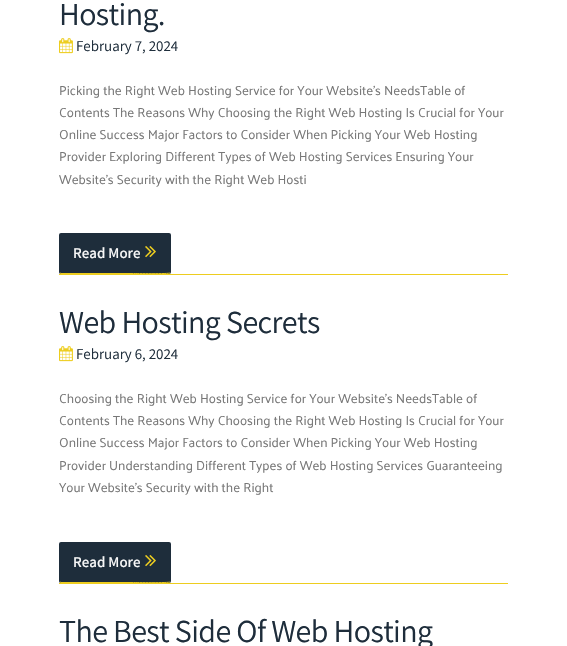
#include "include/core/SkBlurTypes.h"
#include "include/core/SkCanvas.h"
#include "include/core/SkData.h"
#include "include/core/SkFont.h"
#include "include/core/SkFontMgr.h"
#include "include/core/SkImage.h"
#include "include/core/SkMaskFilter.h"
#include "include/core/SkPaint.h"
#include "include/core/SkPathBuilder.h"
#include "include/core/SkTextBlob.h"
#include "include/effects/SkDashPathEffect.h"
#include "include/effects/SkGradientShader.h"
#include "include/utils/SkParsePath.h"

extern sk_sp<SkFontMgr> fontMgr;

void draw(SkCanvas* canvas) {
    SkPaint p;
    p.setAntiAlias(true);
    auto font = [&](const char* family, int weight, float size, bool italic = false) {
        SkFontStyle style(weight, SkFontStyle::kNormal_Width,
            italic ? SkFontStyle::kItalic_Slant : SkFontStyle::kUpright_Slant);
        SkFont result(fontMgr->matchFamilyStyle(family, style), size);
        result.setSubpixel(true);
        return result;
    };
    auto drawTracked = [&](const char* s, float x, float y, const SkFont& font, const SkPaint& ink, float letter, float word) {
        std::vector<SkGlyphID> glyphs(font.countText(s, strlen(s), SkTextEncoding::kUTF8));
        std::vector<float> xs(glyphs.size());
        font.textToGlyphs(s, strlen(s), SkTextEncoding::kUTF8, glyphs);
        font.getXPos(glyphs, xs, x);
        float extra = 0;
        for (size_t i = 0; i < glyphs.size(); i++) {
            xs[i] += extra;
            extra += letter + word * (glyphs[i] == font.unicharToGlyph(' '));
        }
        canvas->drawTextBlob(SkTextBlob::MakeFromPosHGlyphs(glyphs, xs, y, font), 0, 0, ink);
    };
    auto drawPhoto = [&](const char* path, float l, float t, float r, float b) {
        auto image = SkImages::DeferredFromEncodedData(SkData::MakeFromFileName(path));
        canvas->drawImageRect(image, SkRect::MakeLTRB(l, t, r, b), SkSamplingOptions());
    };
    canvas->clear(0xFFFFFFFF);
    auto font1 = font("Assistant", 400, 32);
    p.setColor(0xFF1E2D3B);
    drawTracked("Hosting.", 59, 25, font1, p, -0.6f, 0);
    drawPhoto("media/1.png", 59, 38, 73, 54);
    auto font2 = font("Assistant", 400, 15);
    canvas->drawString("February 7, 2024", 76, 51, font2, p);
    auto font3 = font("Palanquin", 400, 13.1f);
    p.setColor(0xFF777777);
    {
        const struct { const char* s; float x, y; } items[] = {
            {"Picking the Right Web Hosting Service for Your Website's NeedsTable of", 59, 95},
            {"Contents The Reasons Why Choosing the Right Web Hosting Is Crucial for Your", 59, 117},
            {"Online Success Major Factors to Consider When Picking Your Web Hosting", 59, 139},
            {"Provider Exploring Different Types of Web Hosting Services Ensuring Your", 59, 161},
            {"Website's Security with the Right Web Hosti", 59, 184},
        };
        for (auto [s, x, y] : items) {
            canvas->drawString(s, x, y, font3, p);
        }
    }
    p.setColor(0xFF1E2D3B);
    canvas->drawRoundRect(SkRect::MakeLTRB(59, 233, 171, 274), 2, 2, p);
    p.setStyle(SkPaint::kStroke_Style);
    p.setStrokeWidth(1);
    p.setColor(0xFFEDCD1F);
    canvas->drawPath(SkPathBuilder().moveTo(170, 273).cubicTo(169, 274, 135, 273.5f, 133, 273.5f).lineTo(61, 273.5f).lineTo(60, 273).detach(), p);
    auto font4 = font("Assistant", 600, 15);
    p.setStyle(SkPaint::kFill_Style);
    p.setColor(0xFFF7F7F7);
    canvas->drawString("Read More", 73, 258, font4, p);
    drawPhoto("media/2.png", 145, 246, 156, 258);
    p.setColor(0xFFEDCD1F);
    canvas->drawRect(SkRect::MakeLTRB(59, 274, 508, 275), p);
    p.setColor(0xFF1E2D3B);
    drawTracked("Web Hosting Secrets", 59, 333, font1, p, -0.6f, 0);
    drawPhoto("media/1.png", 59, 346, 73, 362);
    canvas->drawString("February 6, 2024", 76, 359, font2, p);
    p.setColor(0xFF777777);
    {
        const struct { const char* s; float x, y; } items[] = {
            {"Choosing the Right Web Hosting Service for Your Website's NeedsTable of", 59, 403},
            {"Contents The Reasons Why Choosing the Right Web Hosting Is Crucial for Your", 59, 425},
            {"Online Success Major Factors to Consider When Picking Your Web Hosting", 59, 447},
            {"Provider Understanding Different Types of Web Hosting Services Guaranteeing", 59, 470},
            {"Your Website's Security with the Right", 59, 492},
        };
        for (auto [s, x, y] : items) {
            canvas->drawString(s, x, y, font3, p);
        }
    }
    p.setColor(0xFF1E2D3B);
    canvas->drawRoundRect(SkRect::MakeLTRB(59, 542, 171, 583), 2, 2, p);
    p.setStyle(SkPaint::kStroke_Style);
    p.setColor(0xFFEDCD1F);
    canvas->drawPath(SkPathBuilder().moveTo(170, 582).cubicTo(169, 583, 135, 582.5f, 133, 582.5f).lineTo(61, 582.5f).lineTo(60, 582).detach(), p);
    p.setStyle(SkPaint::kFill_Style);
    p.setColor(0xFFF7F7F7);
    canvas->drawString("Read More", 73, 567, font4, p);
    drawPhoto("media/2.png", 145, 555, 156, 567);
    p.setColor(0xFFEDCD1F);
    canvas->drawRect(SkRect::MakeLTRB(59, 583, 508, 584), p);
    p.setColor(0xFF1E2D3B);
    drawTracked("The Best Side Of Web Hosting", 59, 642, font1, p, -0.6f, 0);
}
